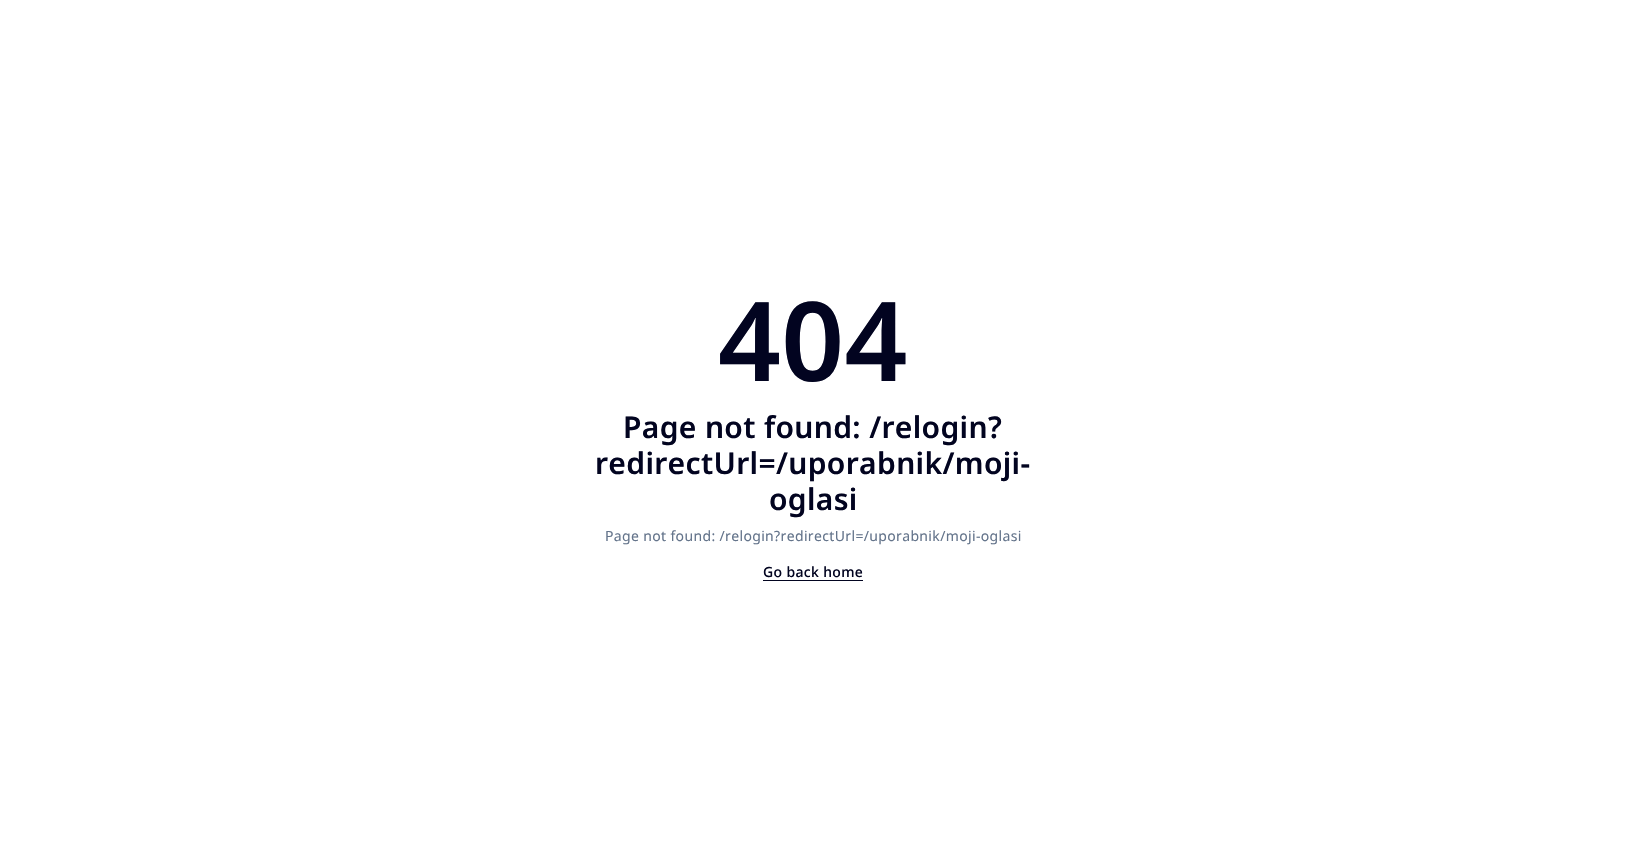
#include "include/core/SkBlurTypes.h"
#include "include/core/SkCanvas.h"
#include "include/core/SkData.h"
#include "include/core/SkFont.h"
#include "include/core/SkFontMgr.h"
#include "include/core/SkImage.h"
#include "include/core/SkMaskFilter.h"
#include "include/core/SkPaint.h"
#include "include/core/SkPathBuilder.h"
#include "include/core/SkTextBlob.h"
#include "include/effects/SkDashPathEffect.h"
#include "include/effects/SkGradientShader.h"
#include "include/utils/SkParsePath.h"

extern sk_sp<SkFontMgr> fontMgr;

void draw(SkCanvas* canvas) {
    SkPaint p;
    p.setAntiAlias(true);
    auto font = [&](const char* family, int weight, float size, bool italic = false) {
        SkFontStyle style(weight, SkFontStyle::kNormal_Width,
            italic ? SkFontStyle::kItalic_Slant : SkFontStyle::kUpright_Slant);
        SkFont result(fontMgr->matchFamilyStyle(family, style), size);
        result.setSubpixel(true);
        return result;
    };
    auto drawTracked = [&](const char* s, float x, float y, const SkFont& font, const SkPaint& ink, float letter, float word) {
        std::vector<SkGlyphID> glyphs(font.countText(s, strlen(s), SkTextEncoding::kUTF8));
        std::vector<float> xs(glyphs.size());
        font.textToGlyphs(s, strlen(s), SkTextEncoding::kUTF8, glyphs);
        font.getXPos(glyphs, xs, x);
        float extra = 0;
        for (size_t i = 0; i < glyphs.size(); i++) {
            xs[i] += extra;
            extra += letter + word * (glyphs[i] == font.unicharToGlyph(' '));
        }
        canvas->drawTextBlob(SkTextBlob::MakeFromPosHGlyphs(glyphs, xs, y, font), 0, 0, ink);
    };
    canvas->clear(0xFFFFFFFF);
    auto font1 = font("Noto Sans", 600, 110);
    p.setColor(0xFF020420);
    drawTracked("404", 718, 381, font1, p, 0.35f, 0);
    auto font2 = font("Noto Sans", 600, 30);
    {
        const struct { const char* s; float x, y; } items[] = {
            {"Page not found: /relogin?", 623, 438},
            {"redirectUrl=/uporabnik/moji-", 595, 474},
            {"oglasi", 769, 510},
        };
        for (auto [s, x, y] : items) {
            drawTracked(s, x, y, font2, p, 0.35f, 0);
        }
    }
    auto font3 = font("Noto Sans", 400, 14);
    p.setColor(0xFF64748B);
    drawTracked("Page not found: /relogin?redirectUrl=/uporabnik/moji-oglasi", 605, 541, font3, p, 0.35f, 0);
    auto font4 = font("Noto Sans", 500, 14);
    p.setColor(0xFF020420);
    drawTracked("Go back home", 763, 577, font4, p, 0.35f, 0);
    canvas->drawRect(SkRect::MakeLTRB(763, 580, 863, 581), p);
}
